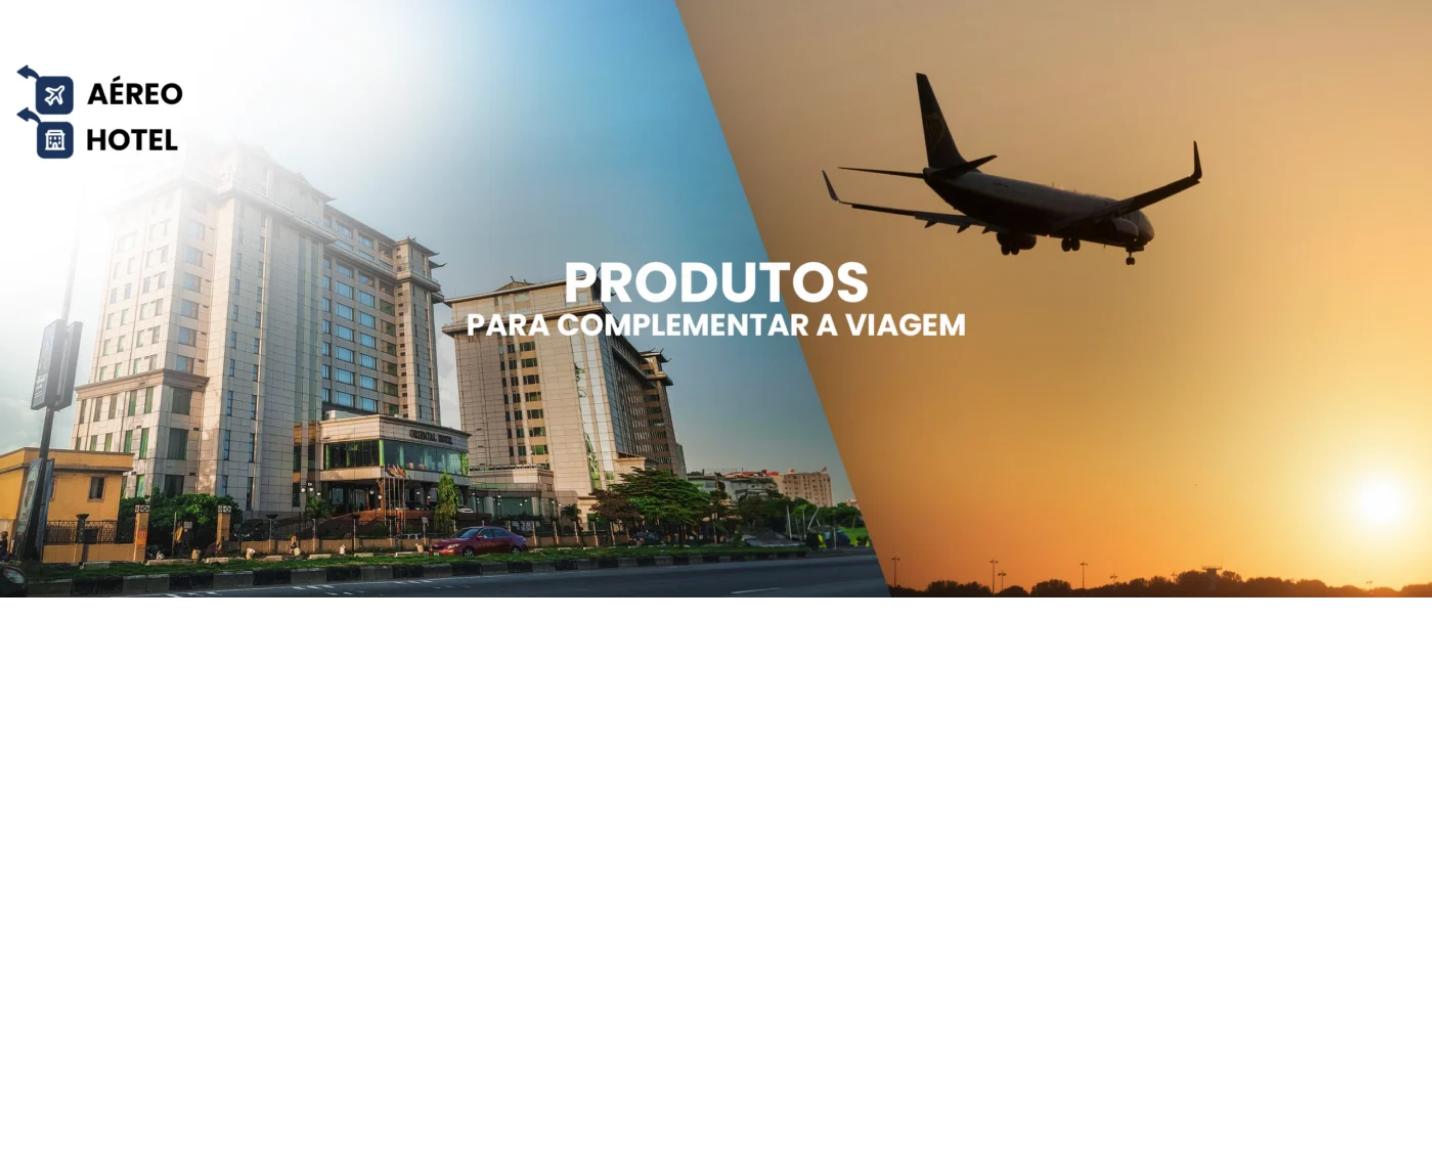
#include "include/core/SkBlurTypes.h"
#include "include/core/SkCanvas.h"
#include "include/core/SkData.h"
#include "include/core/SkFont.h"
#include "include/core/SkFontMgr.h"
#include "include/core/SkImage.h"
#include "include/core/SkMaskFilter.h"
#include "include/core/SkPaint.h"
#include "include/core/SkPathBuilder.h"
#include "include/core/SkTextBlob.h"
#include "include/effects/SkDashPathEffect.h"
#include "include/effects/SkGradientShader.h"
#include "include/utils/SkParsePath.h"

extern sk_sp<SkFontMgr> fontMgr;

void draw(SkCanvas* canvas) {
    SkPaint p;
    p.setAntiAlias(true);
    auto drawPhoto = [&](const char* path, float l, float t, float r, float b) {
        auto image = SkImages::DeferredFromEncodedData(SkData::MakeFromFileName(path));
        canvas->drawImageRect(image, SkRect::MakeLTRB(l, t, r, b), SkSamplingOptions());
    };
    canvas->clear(0xFFFFFFFF);
    drawPhoto("media/1.png", 0, 0, 1432, 598);
}
